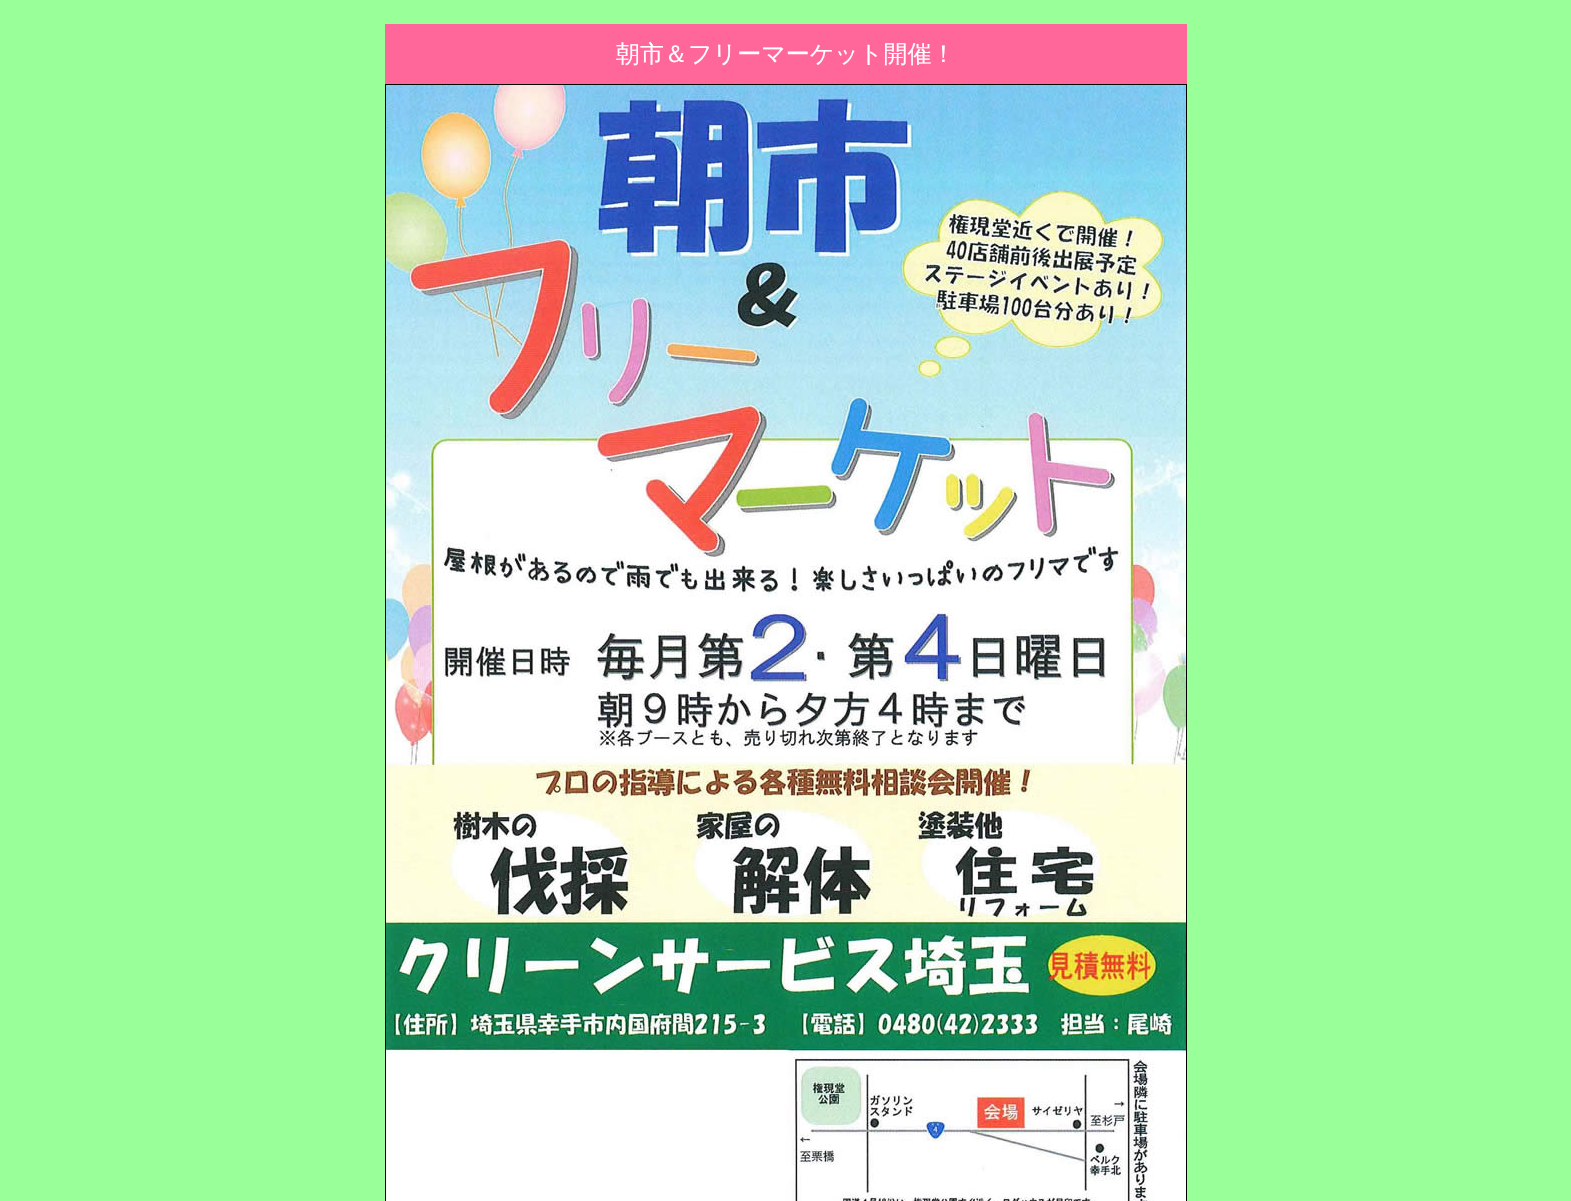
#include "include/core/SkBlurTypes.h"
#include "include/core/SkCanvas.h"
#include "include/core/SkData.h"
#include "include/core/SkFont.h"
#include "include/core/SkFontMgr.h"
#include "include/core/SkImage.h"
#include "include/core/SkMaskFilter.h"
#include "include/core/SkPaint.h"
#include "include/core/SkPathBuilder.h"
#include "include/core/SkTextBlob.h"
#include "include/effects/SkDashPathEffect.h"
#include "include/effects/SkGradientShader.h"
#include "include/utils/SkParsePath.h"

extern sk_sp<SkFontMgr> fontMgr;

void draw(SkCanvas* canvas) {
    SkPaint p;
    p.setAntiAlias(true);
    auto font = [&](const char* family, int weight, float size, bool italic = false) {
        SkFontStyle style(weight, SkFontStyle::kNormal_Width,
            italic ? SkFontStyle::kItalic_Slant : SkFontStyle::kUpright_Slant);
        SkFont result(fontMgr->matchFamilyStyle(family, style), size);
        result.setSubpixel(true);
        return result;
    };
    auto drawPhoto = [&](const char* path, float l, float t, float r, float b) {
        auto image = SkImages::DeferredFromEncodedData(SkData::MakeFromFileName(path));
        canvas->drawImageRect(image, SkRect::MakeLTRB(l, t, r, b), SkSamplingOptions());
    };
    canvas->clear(0xFF99FF99);
    p.setColor(0xFFFF6699);
    canvas->drawRect(SkRect::MakeLTRB(385, 24, 1187, 84), p);
    auto font1 = font("WenQuanYi Zen Hei", 500, 24);
    p.setColor(0xFFFFFFFF);
    canvas->drawString("朝市＆フリーマーケット開催！", 616, 62, font1, p);
    p.setStyle(SkPaint::kStroke_Style);
    p.setStrokeWidth(1);
    p.setColor(0xFF000000);
    canvas->drawRect(SkRect::MakeLTRB(385.5f, 84.5f, 1186.5f, 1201.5f), p);
    drawPhoto("media/1.png", 386, 85, 1186, 1201);
}
